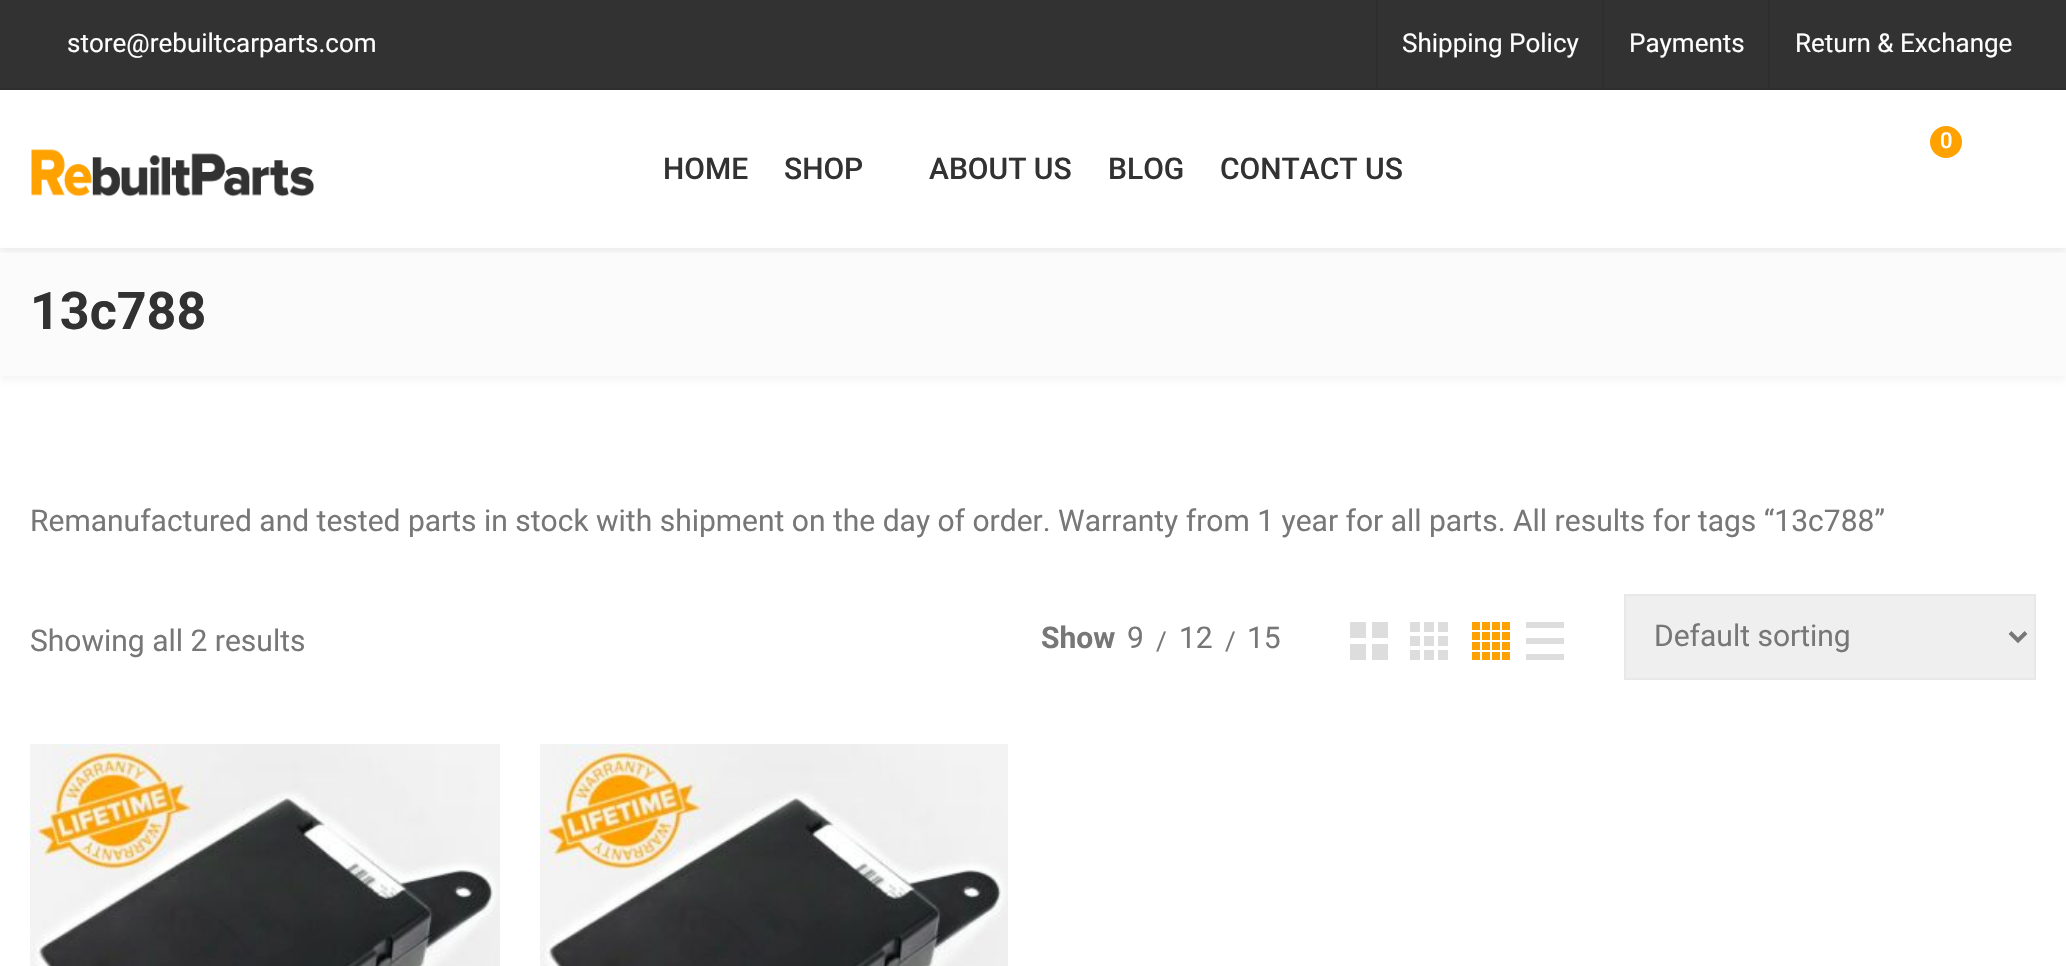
#include "include/core/SkBlurTypes.h"
#include "include/core/SkCanvas.h"
#include "include/core/SkData.h"
#include "include/core/SkFont.h"
#include "include/core/SkFontMgr.h"
#include "include/core/SkImage.h"
#include "include/core/SkMaskFilter.h"
#include "include/core/SkPaint.h"
#include "include/core/SkPathBuilder.h"
#include "include/core/SkTextBlob.h"
#include "include/effects/SkDashPathEffect.h"
#include "include/effects/SkGradientShader.h"
#include "include/utils/SkParsePath.h"

extern sk_sp<SkFontMgr> fontMgr;

void draw(SkCanvas* canvas) {
    SkPaint p;
    p.setAntiAlias(true);
    auto font = [&](const char* family, int weight, float size, bool italic = false) {
        SkFontStyle style(weight, SkFontStyle::kNormal_Width,
            italic ? SkFontStyle::kItalic_Slant : SkFontStyle::kUpright_Slant);
        SkFont result(fontMgr->matchFamilyStyle(family, style), size);
        result.setSubpixel(true);
        return result;
    };
    auto drawPhoto = [&](const char* path, float l, float t, float r, float b) {
        auto image = SkImages::DeferredFromEncodedData(SkData::MakeFromFileName(path));
        canvas->drawImageRect(image, SkRect::MakeLTRB(l, t, r, b), SkSamplingOptions());
    };
    canvas->clear(0xFFFFFFFF);
    p.setColor(0x0A000000);
    p.setMaskFilter(SkMaskFilter::MakeBlur(kNormal_SkBlurStyle, 3));
    canvas->drawRect(SkRect::MakeLTRB(0, 252, 2066, 380), p);
    p.setMaskFilter(nullptr);
    p.setColor(0xFFFBFBFB);
    canvas->drawRect(SkRect::MakeLTRB(0, 248, 2066, 376), p);
    canvas->save();
    canvas->clipRect(SkRect::MakeLTRB(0, 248, 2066, 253));
    p.setColor(0x0D000000);
    p.setMaskFilter(SkMaskFilter::MakeBlur(kNormal_SkBlurStyle, 3));
    canvas->drawRect(SkRect::MakeLTRB(0, 4, 2066, 252), p);
    p.setMaskFilter(nullptr);
    canvas->restore();
    p.setColor(0xFF323232);
    canvas->drawRect(SkRect::MakeLTRB(0, 0, 2066, 88), p);
    p.setColor(0xFF2E2E2E);
    canvas->drawRect(SkRect::MakeLTRB(0, 88, 2066, 90), p);
    auto font1 = font("Roboto", 400, 26);
    p.setColor(0xFFFFFFFF);
    canvas->drawString("store@rebuiltcarparts.com", 67, 52, font1, p);
    p.setColor(0xFF2E2E2E);
    canvas->drawRect(SkRect::MakeLTRB(1376, 0, 1378, 88), p);
    p.setColor(0xFFFFFFFF);
    canvas->drawString("Shipping Policy", 1402, 52, font1, p);
    p.setColor(0xFF2E2E2E);
    canvas->drawRect(SkRect::MakeLTRB(1602, 0, 1604, 88), p);
    p.setColor(0xFFFFFFFF);
    canvas->drawString("Payments", 1629, 52, font1, p);
    p.setColor(0xFF2E2E2E);
    canvas->drawRect(SkRect::MakeLTRB(1768, 0, 1770, 88), p);
    p.setColor(0xFFFFFFFF);
    canvas->drawString("Return & Exchange", 1795, 52, font1, p);
    p.setColor(0xFFFFA200);
    canvas->drawCircle(1946, 142, 16, p);
    auto font2 = font("Roboto", 500, 22);
    p.setColor(0xFFFFFFFF);
    canvas->drawString("0", 1940, 148, font2, p);
    drawPhoto("media/1.png", 31, 149, 314, 197);
    auto font3 = font("Roboto", 500, 30);
    p.setColor(0xFF323232);
    {
        const struct { const char* s; float x, y; } items[] = {
            {"HOME", 663, 179},
            {"SHOP", 784, 179},
            {"ABOUT US", 929, 179},
            {"BLOG", 1108, 179},
            {"CONTACT US", 1220, 179},
        };
        for (auto [s, x, y] : items) {
            canvas->drawString(s, x, y, font3, p);
        }
    }
    auto font4 = font("Roboto", 700, 52);
    canvas->drawString("13c788", 30, 329, font4, p);
    auto font5 = font("Roboto", 400, 30);
    p.setColor(0xFF777777);
    canvas->drawString("Remanufactured and tested parts in stock with shipment on the day of order. Warranty from 1 year for all parts. All results for tags “13c788”", 30, 531, font5, p);
    canvas->drawString("Showing all 2 results", 30, 651, font5, p);
    auto font6 = font("Roboto", 700, 30);
    canvas->drawString("Show", 1041, 648, font6, p);
    canvas->drawString("9", 1127, 648, font5, p);
    canvas->drawString("/", 1156, 650, font1, p);
    canvas->drawString("12", 1179, 648, font5, p);
    canvas->drawString("/", 1225, 650, font1, p);
    canvas->drawString("15", 1247, 648, font5, p);
    drawPhoto("media/2.png", 1350, 622, 1388, 660);
    drawPhoto("media/3.png", 1410, 622, 1448, 660);
    drawPhoto("media/4.png", 1472, 622, 1510, 660);
    p.setColor(0xFFDDDDDD);
    canvas->drawPath(SkPathBuilder().moveTo(1526, 622).lineTo(1564, 622).lineTo(1564, 628).lineTo(1526, 628).close().moveTo(1526, 638).lineTo(1564, 638).lineTo(1564, 644).lineTo(1526, 644).close().moveTo(1526, 654).lineTo(1564, 654).lineTo(1564, 660).lineTo(1526, 660).close().detach(), p);
    p.setColor(0xFFEFEFEF);
    canvas->drawRect(SkRect::MakeLTRB(1625, 595, 2035, 679), p);
    p.setStyle(SkPaint::kStroke_Style);
    p.setStrokeWidth(2);
    p.setColor(0xFFE8E8E8);
    canvas->drawRect(SkRect::MakeLTRB(1625, 595, 2035, 679), p);
    p.setStrokeWidth(4);
    p.setColor(0xFF777777);
    canvas->drawPath(SkPathBuilder().moveTo(2010, 632.5f).lineTo(2018, 640.5f).lineTo(2026, 632.5f).detach(), p);
    p.setStyle(SkPaint::kFill_Style);
    canvas->drawString("Default sorting", 1654, 646, font5, p);
    drawPhoto("media/5.png", 30, 744, 500, 966);
    drawPhoto("media/6.png", 540, 744, 1008, 966);
}
